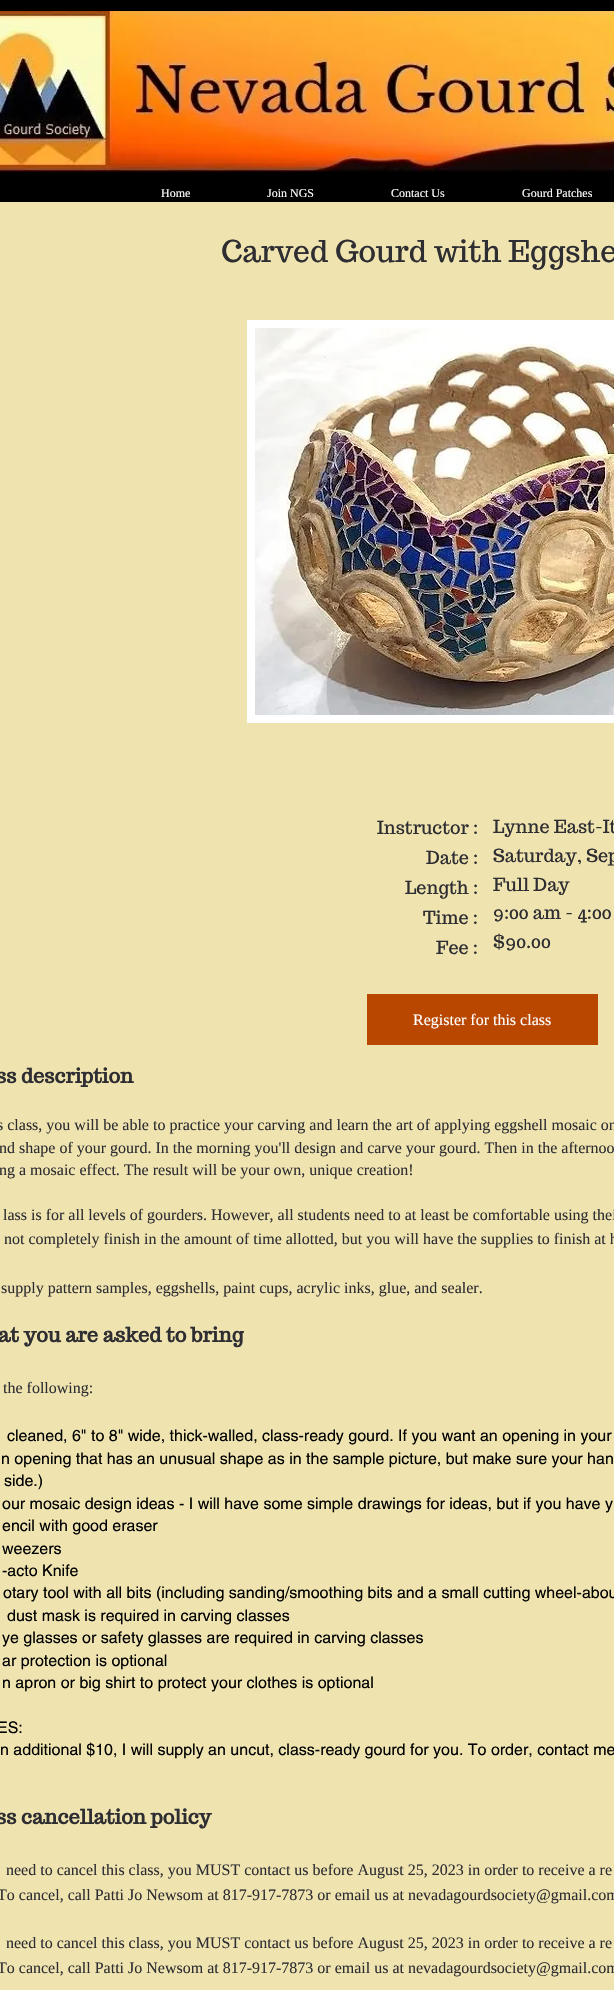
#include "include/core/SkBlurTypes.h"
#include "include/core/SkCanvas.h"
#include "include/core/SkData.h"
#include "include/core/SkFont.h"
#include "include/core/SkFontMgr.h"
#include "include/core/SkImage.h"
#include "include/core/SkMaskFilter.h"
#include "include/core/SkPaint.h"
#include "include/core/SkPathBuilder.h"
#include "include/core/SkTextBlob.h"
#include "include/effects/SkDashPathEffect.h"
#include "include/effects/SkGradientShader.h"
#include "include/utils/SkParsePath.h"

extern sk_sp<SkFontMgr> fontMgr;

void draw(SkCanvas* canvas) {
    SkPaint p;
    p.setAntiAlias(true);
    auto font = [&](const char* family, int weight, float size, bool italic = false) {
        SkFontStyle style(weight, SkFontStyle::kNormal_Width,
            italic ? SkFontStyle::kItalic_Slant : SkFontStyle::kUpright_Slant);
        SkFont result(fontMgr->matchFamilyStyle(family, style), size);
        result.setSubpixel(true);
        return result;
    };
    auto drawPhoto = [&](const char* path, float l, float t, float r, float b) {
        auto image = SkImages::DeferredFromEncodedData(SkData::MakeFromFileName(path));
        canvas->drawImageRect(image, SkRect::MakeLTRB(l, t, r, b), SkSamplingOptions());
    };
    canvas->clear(0xFF000000);
    drawPhoto("media/1.png", 0, 11, 614, 172);
    auto font1 = font("Liberation Serif", 400, 12);
    p.setColor(0xFFFFFFFF);
    {
        const struct { const char* s; float x, y; } items[] = {
            {"Home", 161, 197},
            {"Join NGS", 267, 197},
            {"Contact Us", 391, 197},
            {"Gourd Patches", 522, 197},
        };
        for (auto [s, x, y] : items) {
            canvas->drawString(s, x, y, font1, p);
        }
    }
    p.setColor(0xFFEFE4B0);
    canvas->drawRect(SkRect::MakeLTRB(0, 202, 614, 1990), p);
    auto font2 = font("Trocchi", 400, 30);
    p.setColor(0xFF2E2D31);
    canvas->drawString("Carved Gourd with Eggshe", 221, 262, font2, p);
    p.setColor(0xFFFFFFFF);
    canvas->drawRect(SkRect::MakeLTRB(247, 320, 614, 723), p);
    drawPhoto("media/2.png", 255, 328, 614, 715);
    auto font3 = font("Trocchi", 400, 18);
    p.setColor(0xFF2E2D31);
    {
        const struct { const char* s; float x, y; } items[] = {
            {"Instructor :", 377, 834},
            {"Date :", 426, 864},
            {"Length :", 405, 894},
            {"Time :", 423, 924},
            {"Fee :", 436, 954},
            {"Lynne East-It", 493, 833},
            {"Saturday, Sep", 493, 862},
            {"Full Day", 493, 891},
            {"9:00 am - 4:00", 493, 919},
            {"$90.00", 493, 948},
        };
        for (auto [s, x, y] : items) {
            canvas->drawString(s, x, y, font3, p);
        }
    }
    p.setColor(0xFFB94700);
    canvas->drawRect(SkRect::MakeLTRB(367, 994, 598, 1045), p);
    auto font4 = font("Liberation Serif", 400, 16);
    p.setColor(0xFFFFFFFF);
    canvas->drawString("Register for this class", 413, 1025, font4, p);
    auto font5 = font("Trocchi", 700, 20);
    p.setColor(0xFF2E2D31);
    canvas->drawString("ss description", -4, 1083, font5, p);
    {
        const struct { const char* s; float x, y; } items[] = {
            {"s class, you will be able to practice your carving and learn the art of applying eggshell mosaic on", -3, 1130},
            {"nd shape of your gourd. In the morning you'll design and carve your gourd. Then in the afternoo", -1, 1153},
            {"ng a mosaic effect. The result will be your own, unique creation!", -1, 1175},
            {"lass is for all levels of gourders. However, all students need to at least be comfortable using thei", 3, 1220},
            {"not completely finish in the amount of time allotted, but you will have the supplies to finish at h", 4, 1244},
            {"supply pattern samples, eggshells, paint cups, acrylic inks, glue, and sealer.", 1, 1293},
        };
        for (auto [s, x, y] : items) {
            canvas->drawString(s, x, y, font4, p);
        }
    }
    canvas->drawString("at you are asked to bring", -2, 1342, font5, p);
    canvas->drawString("the following:", 3, 1393, font4, p);
    auto font6 = font("helvetica", 400, 16);
    p.setColor(0xFF000000);
    {
        const struct { const char* s; float x, y; } items[] = {
            {"cleaned, 6\" to 8\" wide, thick-walled, class-ready gourd. If you want an opening in your", 7, 1441},
            {"n opening that has an unusual shape as in the sample picture, but make sure your han", 1, 1464},
            {"side.)", 4, 1486},
            {"our mosaic design ideas - I will have some simple drawings for ideas, but if you have y", 2, 1509},
            {"encil with good eraser", 2, 1531},
            {"weezers", 2, 1554},
            {"-acto Knife", 2, 1576},
            {"otary tool with all bits (including sanding/smoothing bits and a small cutting wheel-abou", 3, 1598},
            {"dust mask is required in carving classes", 7, 1621},
            {"ye glasses or safety glasses are required in carving classes", 2, 1643},
            {"ar protection is optional", 2, 1666},
            {"n apron or big shirt to protect your clothes is optional", 2, 1688},
            {"ES:", -3, 1733},
            {"n additional $10, I will supply an uncut, class-ready gourd for you. To order, contact me", 0, 1755},
        };
        for (auto [s, x, y] : items) {
            canvas->drawString(s, x, y, font6, p);
        }
    }
    p.setColor(0xFF2E2D31);
    canvas->drawString("ss cancellation policy", -4, 1824, font5, p);
    {
        const struct { const char* s; float x, y; } items[] = {
            {"need to cancel this class, you MUST contact us before August 25, 2023 in order to receive a re", 6, 1875},
            {"To cancel, call Patti Jo Newsom at 817-917-7873 or email us at nevadagourdsociety@gmail.com", -3, 1900},
            {"need to cancel this class, you MUST contact us before August 25, 2023 in order to receive a re", 6, 1948},
            {"To cancel, call Patti Jo Newsom at 817-917-7873 or email us at nevadagourdsociety@gmail.com", -3, 1973},
        };
        for (auto [s, x, y] : items) {
            canvas->drawString(s, x, y, font4, p);
        }
    }
}
